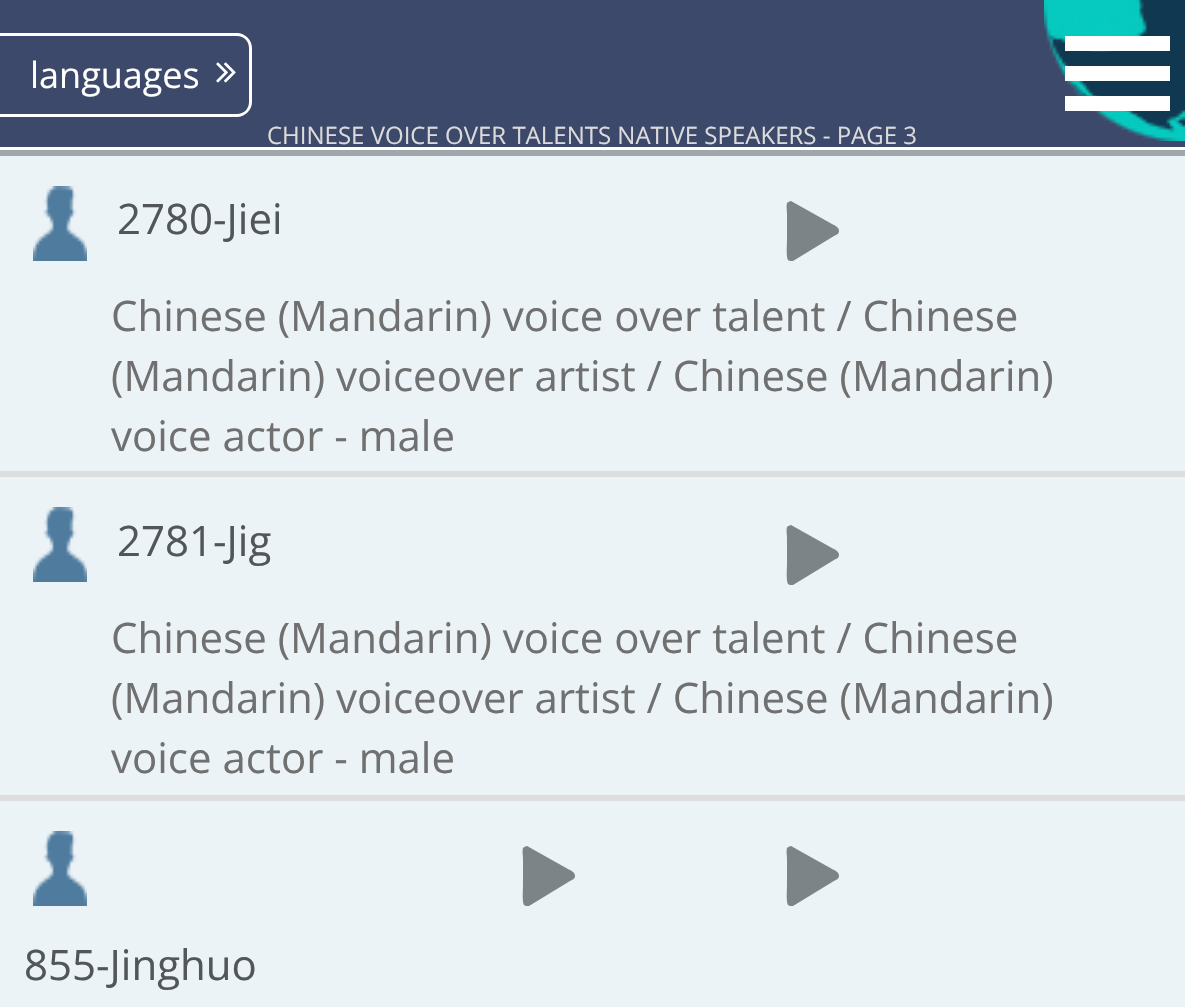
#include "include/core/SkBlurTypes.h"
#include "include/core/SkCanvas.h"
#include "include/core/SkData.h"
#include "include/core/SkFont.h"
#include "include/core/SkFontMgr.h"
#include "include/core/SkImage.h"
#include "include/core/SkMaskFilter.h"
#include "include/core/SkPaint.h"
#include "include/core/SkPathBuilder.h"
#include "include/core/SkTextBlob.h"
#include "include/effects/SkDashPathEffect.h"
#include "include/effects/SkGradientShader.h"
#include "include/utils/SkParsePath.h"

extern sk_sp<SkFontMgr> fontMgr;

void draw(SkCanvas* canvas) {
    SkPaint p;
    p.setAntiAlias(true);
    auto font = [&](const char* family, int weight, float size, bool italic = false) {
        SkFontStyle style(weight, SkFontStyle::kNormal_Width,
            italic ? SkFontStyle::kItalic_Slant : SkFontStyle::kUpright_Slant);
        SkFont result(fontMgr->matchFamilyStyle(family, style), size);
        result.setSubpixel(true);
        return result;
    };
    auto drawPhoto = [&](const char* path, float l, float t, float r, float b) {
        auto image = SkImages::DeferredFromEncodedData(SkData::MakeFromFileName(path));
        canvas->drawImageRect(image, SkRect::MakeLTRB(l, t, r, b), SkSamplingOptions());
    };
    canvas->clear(0xFF9FA7AB);
    p.setColor(0xFF3D496A);
    canvas->drawRect(SkRect::MakeLTRB(0, 0, 1185, 147), p);
    p.setColor(0xFFFFFFFF);
    canvas->drawPath(SkPathBuilder(SkPathFillType::kEvenOdd).moveTo(0, 33).lineTo(237, 33).cubicTo(245, 33, 252, 40, 252, 48).lineTo(252, 102).cubicTo(252, 110, 245, 117, 237, 117).lineTo(0, 117).close().moveTo(0, 36).lineTo(237, 36).cubicTo(244, 36, 249, 41, 249, 48).lineTo(249, 102).cubicTo(249, 109, 244, 114, 237, 114).lineTo(0, 114).close().detach(), p);
    auto font1 = font("Open Sans", 400, 36);
    canvas->drawString("languages", 30, 88, font1, p);
    drawPhoto("media/1.png", 216, 62, 236, 83);
    p.setColor(0xFFEBF3F7);
    canvas->drawRect(SkRect::MakeLTRB(0, 156, 1185, 1007), p);
    drawPhoto("media/2.png", 33, 186, 87, 261);
    auto font2 = font("Open Sans", 400, 42);
    p.setColor(0xFF535659);
    canvas->drawString("2780-Jiei", 117, 234, font2, p);
    p.setColor(0xFF7D8487);
    canvas->drawPath(SkPathBuilder().moveTo(787, 240).lineTo(787, 214).cubicTo(787, 211, 786, 206, 787, 203).cubicTo(788, 202, 790, 201, 791, 201).lineTo(832, 224).cubicTo(834, 225, 839, 227, 839, 231).cubicTo(839, 234, 836, 235, 834, 236).lineTo(793, 261).cubicTo(791, 261, 789, 261, 788, 260).cubicTo(786, 257, 787, 244, 787, 240).close().detach(), p);
    p.setColor(0xFFDDDDDD);
    canvas->drawRect(SkRect::MakeLTRB(0, 471, 1185, 477), p);
    p.setColor(0xFF707070);
    {
        const struct { const char* s; float x, y; } items[] = {
            {"Chinese (Mandarin) voice over talent / Chinese", 111, 331},
            {"(Mandarin) voiceover artist / Chinese (Mandarin)", 111, 391},
            {"voice actor - male", 111, 451},
        };
        for (auto [s, x, y] : items) {
            canvas->drawString(s, x, y, font2, p);
        }
    }
    drawPhoto("media/3.png", 33, 507, 87, 582);
    p.setColor(0xFF535659);
    canvas->drawString("2781-Jig", 117, 556, font2, p);
    p.setColor(0xFF7D8487);
    canvas->drawPath(SkPathBuilder().moveTo(787, 564).lineTo(787, 538).cubicTo(787, 535, 786, 530, 787, 527).cubicTo(788, 526, 790, 525, 791, 525).lineTo(832, 548).cubicTo(834, 549, 839, 551, 839, 555).cubicTo(839, 558, 836, 559, 834, 560).lineTo(793, 585).cubicTo(791, 585, 789, 585, 788, 584).cubicTo(786, 581, 787, 568, 787, 564).close().detach(), p);
    p.setColor(0xFFDDDDDD);
    canvas->drawRect(SkRect::MakeLTRB(0, 795, 1185, 801), p);
    p.setColor(0xFF707070);
    {
        const struct { const char* s; float x, y; } items[] = {
            {"Chinese (Mandarin) voice over talent / Chinese", 111, 653},
            {"(Mandarin) voiceover artist / Chinese (Mandarin)", 111, 713},
            {"voice actor - male", 111, 773},
        };
        for (auto [s, x, y] : items) {
            canvas->drawString(s, x, y, font2, p);
        }
    }
    p.setColor(0xFF7D8487);
    canvas->drawPath(SkPathBuilder().moveTo(523, 885).lineTo(523, 859).cubicTo(523, 856, 522, 851, 523, 848).cubicTo(524, 847, 526, 846, 527, 846).lineTo(568, 869).cubicTo(570, 870, 575, 872, 575, 876).cubicTo(575, 879, 572, 880, 570, 881).lineTo(529, 906).cubicTo(527, 906, 525, 906, 524, 905).cubicTo(522, 902, 523, 889, 523, 885).close().detach(), p);
    canvas->drawPath(SkPathBuilder().moveTo(787, 885).lineTo(787, 859).cubicTo(787, 856, 786, 851, 787, 848).cubicTo(788, 847, 790, 846, 791, 846).lineTo(832, 869).cubicTo(834, 870, 839, 872, 839, 876).cubicTo(839, 879, 836, 880, 834, 881).lineTo(793, 906).cubicTo(791, 906, 789, 906, 788, 905).cubicTo(786, 902, 787, 889, 787, 885).close().detach(), p);
    drawPhoto("media/3.png", 33, 831, 87, 906);
    p.setColor(0xFF535659);
    canvas->drawString("855-Jinghuo", 24, 980, font2, p);
    p.setColor(0xFFFFFFFF);
    canvas->drawRect(SkRect::MakeLTRB(0, 147, 1185, 150), p);
    drawPhoto("media/4.png", 1044, 0, 1185, 141);
    {
        const struct { float l, t, r, b; SkColor color; } items[] = {
            {1065, 96, 1170, 111, 0xFFFFFFFF},
            {1065, 66, 1170, 81, 0xFFFFFFFF},
            {1065, 36, 1170, 51, 0xFFFFFFFF},
        };
        for (auto [l, t, r, b, color] : items) {
            p.setColor(color);
            canvas->drawRect(SkRect::MakeLTRB(l, t, r, b), p);
        }
    }
    auto font3 = font("Open Sans", 400, 24);
    p.setColor(0xFFDBDBDB);
    canvas->drawString("CHINESE VOICE OVER TALENTS NATIVE SPEAKERS - PAGE 3", 267, 144, font3, p);
}
